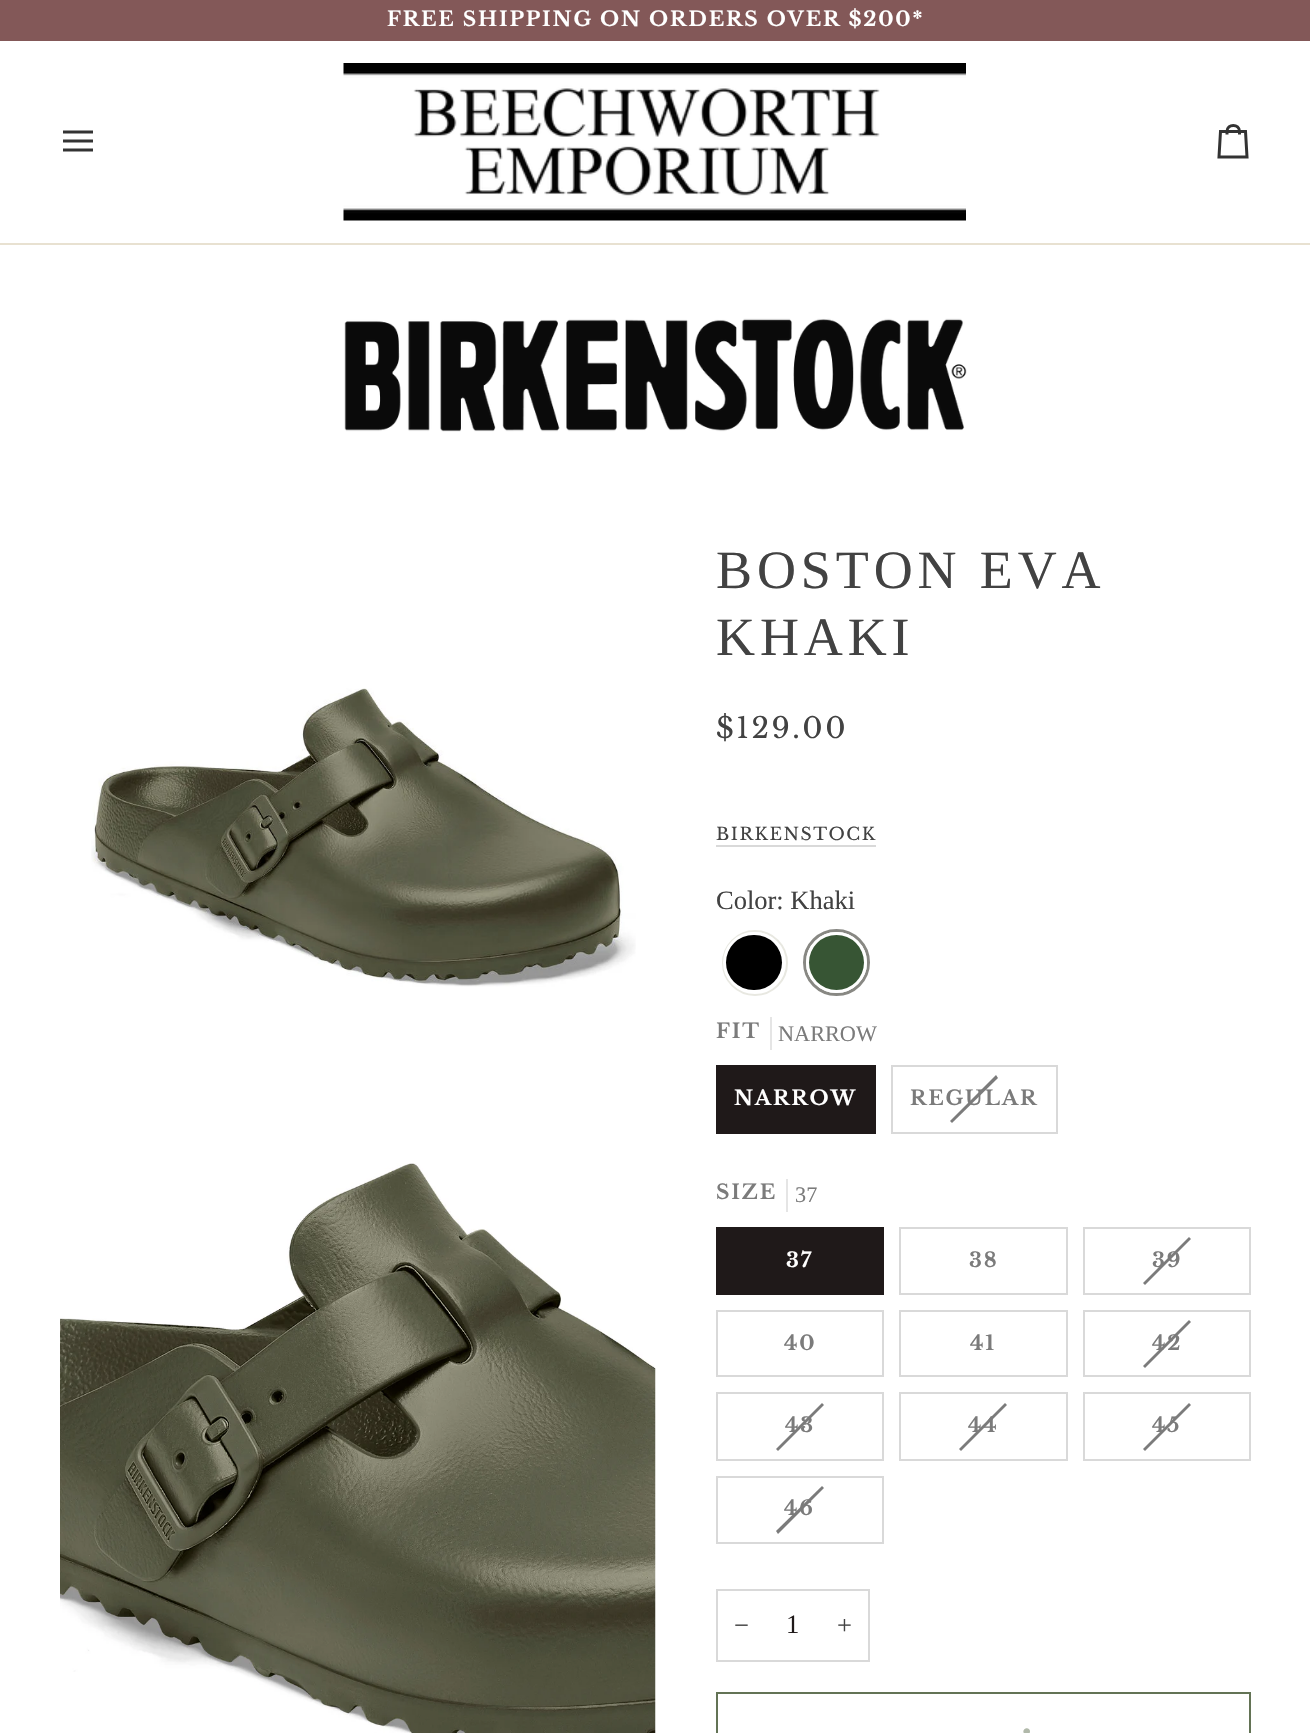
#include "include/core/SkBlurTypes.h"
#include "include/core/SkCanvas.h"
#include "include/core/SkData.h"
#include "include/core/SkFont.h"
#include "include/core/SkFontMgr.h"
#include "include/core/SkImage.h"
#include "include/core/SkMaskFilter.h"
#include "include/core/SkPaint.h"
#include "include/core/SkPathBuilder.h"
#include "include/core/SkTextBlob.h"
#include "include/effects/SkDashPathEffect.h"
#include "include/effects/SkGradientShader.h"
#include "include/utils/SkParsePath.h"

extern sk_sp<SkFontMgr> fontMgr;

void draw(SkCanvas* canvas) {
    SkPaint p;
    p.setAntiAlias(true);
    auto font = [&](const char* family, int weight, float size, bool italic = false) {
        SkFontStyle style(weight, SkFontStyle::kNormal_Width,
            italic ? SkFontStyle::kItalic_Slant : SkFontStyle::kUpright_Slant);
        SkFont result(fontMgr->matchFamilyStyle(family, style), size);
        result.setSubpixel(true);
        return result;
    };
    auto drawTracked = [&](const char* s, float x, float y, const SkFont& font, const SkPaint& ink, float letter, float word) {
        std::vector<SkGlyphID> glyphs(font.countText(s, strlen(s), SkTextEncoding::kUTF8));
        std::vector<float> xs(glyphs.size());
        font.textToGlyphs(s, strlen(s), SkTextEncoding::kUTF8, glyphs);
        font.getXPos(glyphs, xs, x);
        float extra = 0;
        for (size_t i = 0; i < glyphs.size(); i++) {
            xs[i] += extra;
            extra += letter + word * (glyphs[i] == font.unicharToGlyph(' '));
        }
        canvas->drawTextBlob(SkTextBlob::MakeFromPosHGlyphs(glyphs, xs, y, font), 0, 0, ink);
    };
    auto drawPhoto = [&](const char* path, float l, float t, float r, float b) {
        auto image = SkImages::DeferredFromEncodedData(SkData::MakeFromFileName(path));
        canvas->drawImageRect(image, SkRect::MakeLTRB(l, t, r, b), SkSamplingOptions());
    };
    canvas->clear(0xFFFFFFFF);
    p.setColor(0xFF835858);
    canvas->drawRect(SkRect::MakeLTRB(0, 0, 1310, 41), p);
    auto font1 = font("Libre Baskerville", 700, 20.25f);
    p.setColor(0xFFFFFFFF);
    drawTracked("FREE SHIPPING ON ORDERS OVER $200*", 387, 26, font1, p, 1.8f, 0);
    p.setColor(0xFFE8E1D1);
    canvas->drawRect(SkRect::MakeLTRB(0, 243, 1310, 245), p);
    p.setStyle(SkPaint::kStroke_Style);
    p.setStrokeWidth(3);
    p.setStrokeCap(SkPaint::kSquare_Cap);
    p.setColor(0xFF333333);
    canvas->drawPath(SkPathBuilder().moveTo(91.5f, 132).lineTo(64.5f, 132).moveTo(91.5f, 141).lineTo(64.5f, 141).moveTo(91.5f, 150).lineTo(64.5f, 150).detach(), p);
    drawPhoto("media/1.png", 343, 63, 966, 221);
    p.setStrokeCap(SkPaint::kButt_Cap);
    canvas->drawPath(SkPathBuilder().moveTo(1239.5f, 134.5f).lineTo(1239.5f, 131.5f).lineTo(1245.5f, 131.5f).lineTo(1247, 157).lineTo(1219, 157).lineTo(1220.5f, 131.5f).lineTo(1227, 131.5f).cubicTo(1227, 123.5f, 1239.5f, 123.5f, 1239.5f, 131.5f).lineTo(1227, 131.5f).lineTo(1227, 134.5f).detach(), p);
    drawPhoto("media/2.png", 344, 318, 967, 432);
    drawPhoto("media/3.png", 91, 688, 636, 987);
    drawPhoto("media/4.png", 60, 1163, 656, 1733);
    auto font2 = font("Liberation Serif", 400, 54);
    p.setStyle(SkPaint::kFill_Style);
    p.setColor(0xFF424242);
    drawTracked("BOSTON EVA", 716, 588, font2, p, 4.9f, 0);
    drawTracked("KHAKI", 716, 655, font2, p, 4.9f, 0);
    auto font3 = font("Libre Baskerville", 400, 28.5f);
    drawTracked("$129.00", 716, 738, font3, p, 2.5f, 0);
    auto font4 = font("Libre Baskerville", 400, 17.25f);
    drawTracked("BIRKENSTOCK", 716, 840, font4, p, 1.5f, 0);
    p.setColor(0xFFD9D9D9);
    canvas->drawRect(SkRect::MakeLTRB(716, 845, 876, 847), p);
    auto font5 = font("Liberation Serif", 400, 26.5f);
    p.setColor(0xFF424242);
    canvas->drawString("Color: Khaki", 716, 909, font5, p);
    p.setStyle(SkPaint::kStroke_Style);
    p.setStrokeWidth(2);
    p.setColor(0xFFE8E8E1);
    canvas->drawCircle(755, 963, 32, p);
    p.setStrokeWidth(3);
    p.setColor(0xFFFFFFFF);
    canvas->drawRoundRect(SkRect::MakeLTRB(724.5f, 933.5f, 783.5f, 991.5f), 29, 29, p);
    p.setStyle(SkPaint::kFill_Style);
    p.setColor(0xFF000000);
    canvas->drawRoundRect(SkRect::MakeLTRB(726, 935, 782, 990), 27.5f, 27.5f, p);
    p.setStyle(SkPaint::kStroke_Style);
    p.setColor(0xFF888883);
    canvas->drawCircle(836.5f, 962.5f, 32, p);
    p.setColor(0xFFFFFFFF);
    canvas->drawCircle(836.5f, 962.5f, 29, p);
    p.setStyle(SkPaint::kFill_Style);
    p.setColor(0xFF375534);
    canvas->drawCircle(836.5f, 962.5f, 27.5f, p);
    p.setColor(0xFF7B7B7B);
    drawTracked("FIT", 716, 1038, font1, p, 1.8f, 0);
    p.setColor(0xFFE5E5E5);
    canvas->drawRect(SkRect::MakeLTRB(770, 1017, 772, 1050), p);
    auto font6 = font("Liberation Serif", 400, 22.25f);
    p.setColor(0xFF7B7B7B);
    canvas->drawString("NARROW", 778, 1041, font6, p);
    p.setColor(0xFF1F1919);
    canvas->drawRect(SkRect::MakeLTRB(716, 1065, 876, 1134), p);
    p.setColor(0xFFFFFFFF);
    drawTracked("NARROW", 734, 1105, font1, p, 1.8f, 0);
    p.setStyle(SkPaint::kStroke_Style);
    p.setStrokeWidth(2);
    p.setColor(0xFFD9D9D9);
    canvas->drawRect(SkRect::MakeLTRB(892, 1066, 1057, 1133), p);
    p.setStyle(SkPaint::kFill_Style);
    p.setColor(0xFF7B7B7B);
    canvas->drawPath(SkPathBuilder().moveTo(996, 1075).lineTo(998, 1078).lineTo(952, 1123).lineTo(950, 1121).close().detach(), p);
    drawTracked("REGULAR", 910, 1105, font1, p, 1.8f, 0);
    drawTracked("SIZE", 716, 1199, font1, p, 1.8f, 0);
    p.setColor(0xFFE5E5E5);
    canvas->drawRect(SkRect::MakeLTRB(786, 1179, 788, 1212), p);
    p.setColor(0xFF7B7B7B);
    canvas->drawString("37", 795, 1202, font6, p);
    p.setColor(0xFF1F1919);
    canvas->drawRect(SkRect::MakeLTRB(716, 1227, 884, 1295), p);
    p.setColor(0xFFFFFFFF);
    drawTracked("37", 786, 1267, font1, p, 1.8f, 0);
    p.setStyle(SkPaint::kStroke_Style);
    p.setColor(0xFFD9D9D9);
    canvas->drawRect(SkRect::MakeLTRB(900, 1228, 1067, 1294), p);
    p.setStyle(SkPaint::kFill_Style);
    p.setColor(0xFF7B7B7B);
    drawTracked("38", 969, 1267, font1, p, 1.8f, 0);
    p.setStyle(SkPaint::kStroke_Style);
    p.setColor(0xFFD9D9D9);
    canvas->drawRect(SkRect::MakeLTRB(1084, 1228, 1250, 1294), p);
    p.setStyle(SkPaint::kFill_Style);
    p.setColor(0xFF7B7B7B);
    canvas->drawPath(SkPathBuilder().moveTo(1189, 1237).lineTo(1191, 1239).lineTo(1145, 1285).lineTo(1143, 1283).close().detach(), p);
    drawTracked("39", 1152, 1267, font1, p, 1.8f, 0);
    p.setStyle(SkPaint::kStroke_Style);
    p.setColor(0xFFD9D9D9);
    canvas->drawRect(SkRect::MakeLTRB(717, 1311, 883, 1376), p);
    p.setStyle(SkPaint::kFill_Style);
    p.setColor(0xFF7B7B7B);
    drawTracked("40", 784, 1350, font1, p, 1.8f, 0);
    p.setStyle(SkPaint::kStroke_Style);
    p.setColor(0xFFD9D9D9);
    canvas->drawRect(SkRect::MakeLTRB(900, 1311, 1067, 1376), p);
    p.setStyle(SkPaint::kFill_Style);
    p.setColor(0xFF7B7B7B);
    drawTracked("41", 970, 1350, font1, p, 1.8f, 0);
    p.setStyle(SkPaint::kStroke_Style);
    p.setColor(0xFFD9D9D9);
    canvas->drawRect(SkRect::MakeLTRB(1084, 1311, 1250, 1376), p);
    p.setStyle(SkPaint::kFill_Style);
    p.setColor(0xFF7B7B7B);
    canvas->drawPath(SkPathBuilder().moveTo(1189, 1320).lineTo(1191, 1322).lineTo(1145, 1368).lineTo(1143, 1366).close().detach(), p);
    drawTracked("42", 1152, 1350, font1, p, 1.8f, 0);
    p.setStyle(SkPaint::kStroke_Style);
    p.setColor(0xFFD9D9D9);
    canvas->drawRect(SkRect::MakeLTRB(717, 1393, 883, 1460), p);
    p.setStyle(SkPaint::kFill_Style);
    p.setColor(0xFF7B7B7B);
    canvas->drawPath(SkPathBuilder().moveTo(822, 1403).lineTo(824, 1405).lineTo(778, 1451).lineTo(776, 1449).close().detach(), p);
    drawTracked("43", 785, 1432, font1, p, 1.8f, 0);
    p.setStyle(SkPaint::kStroke_Style);
    p.setColor(0xFFD9D9D9);
    canvas->drawRect(SkRect::MakeLTRB(900, 1393, 1067, 1460), p);
    p.setStyle(SkPaint::kFill_Style);
    p.setColor(0xFF7B7B7B);
    canvas->drawPath(SkPathBuilder().moveTo(1005, 1403).lineTo(1007, 1405).lineTo(961, 1451).lineTo(959, 1449).close().detach(), p);
    drawTracked("44", 968, 1432, font1, p, 1.8f, 0);
    p.setStyle(SkPaint::kStroke_Style);
    p.setColor(0xFFD9D9D9);
    canvas->drawRect(SkRect::MakeLTRB(1084, 1393, 1250, 1460), p);
    p.setStyle(SkPaint::kFill_Style);
    p.setColor(0xFF7B7B7B);
    canvas->drawPath(SkPathBuilder().moveTo(1189, 1403).lineTo(1191, 1405).lineTo(1145, 1451).lineTo(1143, 1449).close().detach(), p);
    drawTracked("45", 1152, 1432, font1, p, 1.8f, 0);
    p.setStyle(SkPaint::kStroke_Style);
    p.setColor(0xFFD9D9D9);
    canvas->drawRect(SkRect::MakeLTRB(717, 1477, 883, 1543), p);
    p.setStyle(SkPaint::kFill_Style);
    p.setColor(0xFF7B7B7B);
    canvas->drawPath(SkPathBuilder().moveTo(822, 1486).lineTo(824, 1488).lineTo(778, 1534).lineTo(776, 1531).close().detach(), p);
    drawTracked("46", 784, 1515, font1, p, 1.8f, 0);
    p.setStyle(SkPaint::kStroke_Style);
    p.setColor(0xFFD9D9D9);
    canvas->drawRect(SkRect::MakeLTRB(717, 1590, 869, 1661), p);
    p.setStyle(SkPaint::kFill_Style);
    p.setColor(0xFF424242);
    canvas->drawString("−", 734, 1634, font5, p);
    p.setColor(0xFF1F1919);
    canvas->drawString("1", 786, 1633, font5, p);
    p.setColor(0xFF424242);
    canvas->drawString("+", 837, 1634, font5, p);
    p.setStyle(SkPaint::kStroke_Style);
    p.setColor(0xFF637355);
    canvas->drawRect(SkRect::MakeLTRB(717, 1693, 1250, 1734), p);
    p.setStyle(SkPaint::kFill_Style);
    p.setColor(0xFFB1B9AA);
    drawTracked("•", 1022, 1739, font1, p, 1.8f, 0);
}
